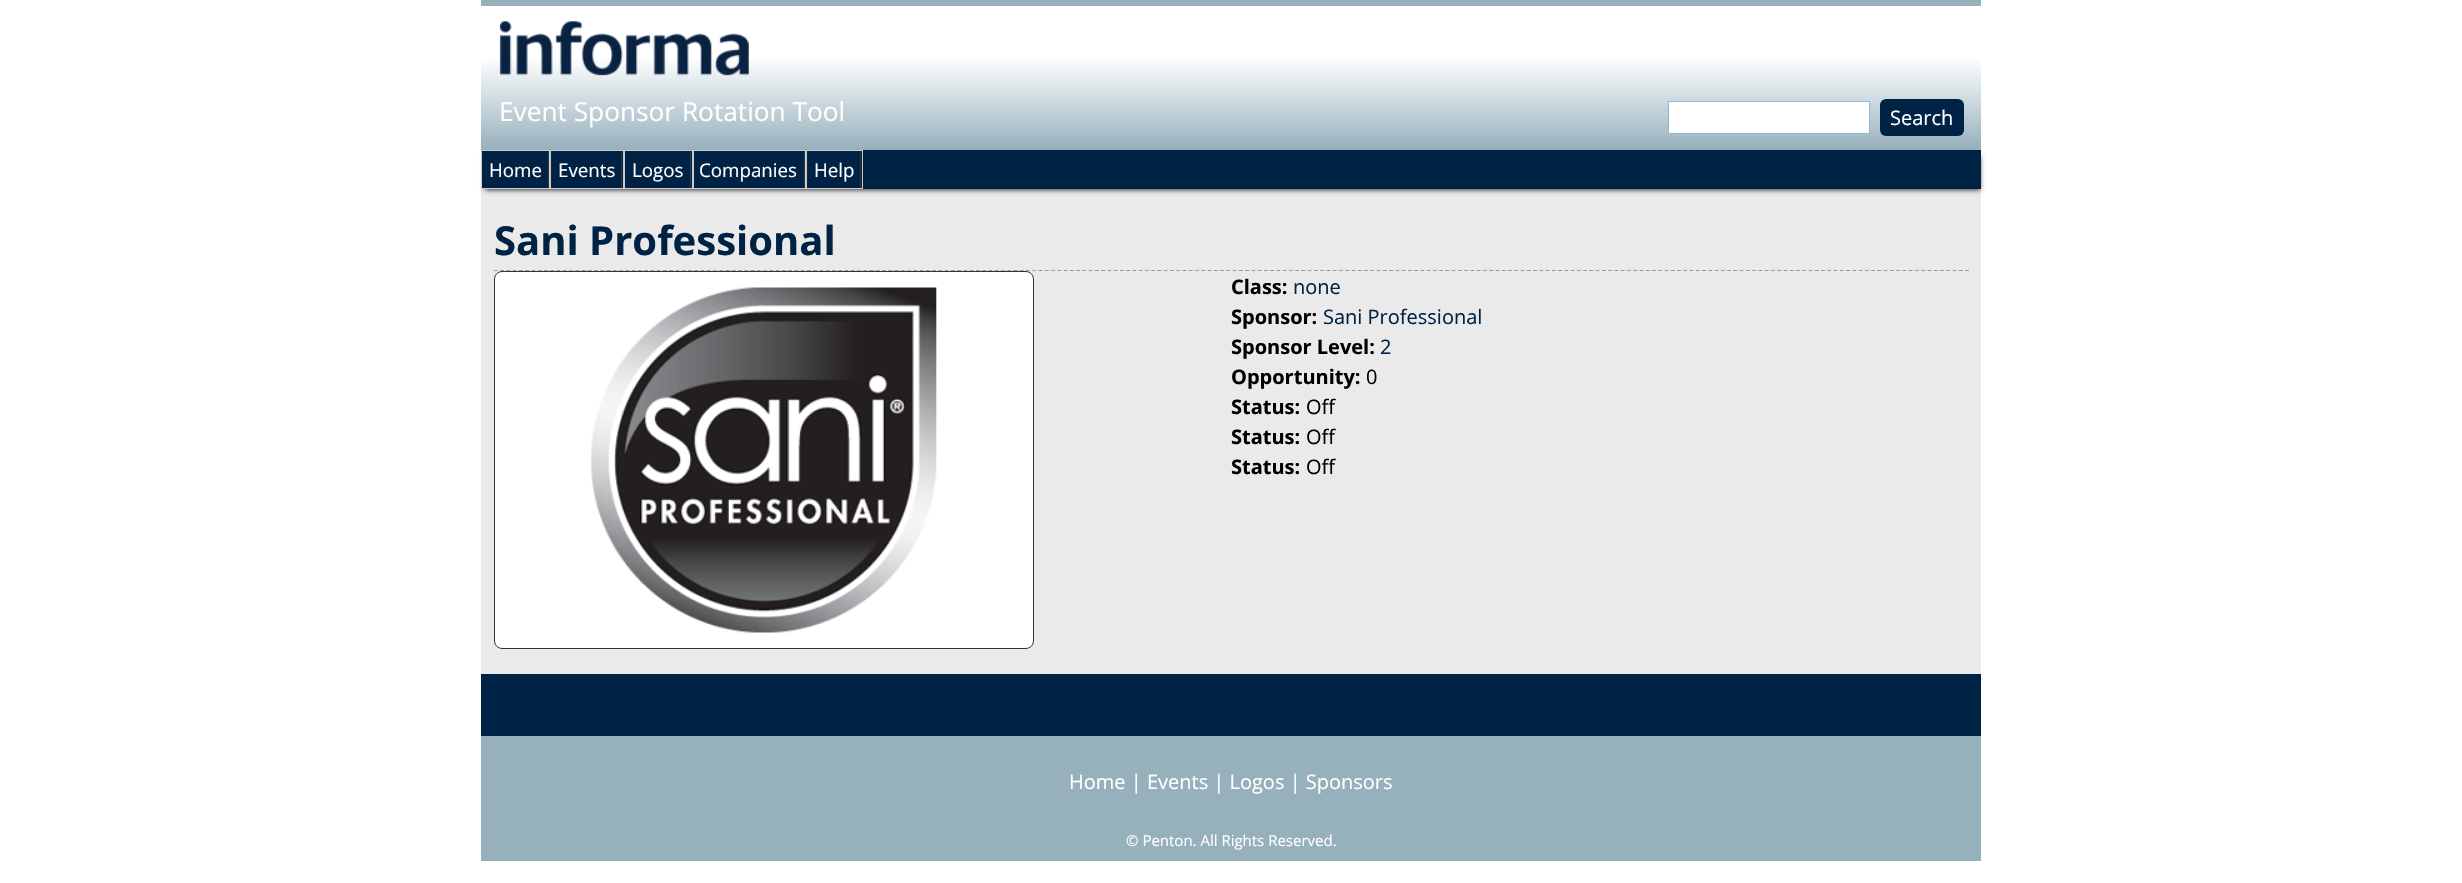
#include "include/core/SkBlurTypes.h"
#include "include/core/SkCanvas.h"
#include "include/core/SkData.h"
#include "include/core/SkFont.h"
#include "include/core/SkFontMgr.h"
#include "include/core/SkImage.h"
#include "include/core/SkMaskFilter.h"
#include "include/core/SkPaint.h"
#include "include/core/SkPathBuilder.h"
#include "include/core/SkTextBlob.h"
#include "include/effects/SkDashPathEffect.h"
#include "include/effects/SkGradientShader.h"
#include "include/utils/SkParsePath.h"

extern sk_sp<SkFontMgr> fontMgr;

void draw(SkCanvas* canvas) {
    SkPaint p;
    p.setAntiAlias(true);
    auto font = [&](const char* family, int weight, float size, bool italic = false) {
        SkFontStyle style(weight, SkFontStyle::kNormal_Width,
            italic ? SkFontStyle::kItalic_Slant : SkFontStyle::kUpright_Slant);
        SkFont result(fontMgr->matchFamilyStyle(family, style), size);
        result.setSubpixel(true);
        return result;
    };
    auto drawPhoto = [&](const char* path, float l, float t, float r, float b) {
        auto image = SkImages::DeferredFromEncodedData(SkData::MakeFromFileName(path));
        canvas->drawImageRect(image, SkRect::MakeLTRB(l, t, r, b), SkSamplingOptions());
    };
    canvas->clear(0xFFFFFFFF);
    {
        const SkColor colors[] = {0xFFFFFFFF, 0xFF96B0BC};
        const float stops[] = {0.35f, 1};
        const SkPoint ends[] = {{1231, 6.2f}, {1231, 150}};
        p.setShader(SkGradientShader::MakeLinear(ends, colors, stops, 2, SkTileMode::kClamp));
        p.setAlpha(255);
    }
    canvas->drawRect(SkRect::MakeLTRB(481, 59, 1981, 150), p);
    p.setShader(nullptr);
    p.setColor(0xFF96B0BC);
    canvas->drawRect(SkRect::MakeLTRB(481, 0, 1981, 6), p);
    drawPhoto("media/1.png", 499, 21, 749, 76);
    auto font1 = font("Open Sans", 400, 26.25f);
    p.setColor(0xFFFFFFFF);
    canvas->drawString("Event Sponsor Rotation Tool", 499, 121, font1, p);
    p.setColor(0xFFEAEAEA);
    canvas->drawRect(SkRect::MakeLTRB(481, 189, 1981, 674), p);
    p.setColor(0xFFFFFFFF);
    canvas->drawRect(SkRect::MakeLTRB(1668.5f, 101.5f, 1869.5f, 133.5f), p);
    p.setStyle(SkPaint::kStroke_Style);
    p.setStrokeWidth(1);
    p.setColor(0xFF97B5E1);
    canvas->drawRect(SkRect::MakeLTRB(1668.5f, 101.5f, 1869.5f, 133.5f), p);
    p.setStyle(SkPaint::kFill_Style);
    p.setColor(0xFF002244);
    canvas->drawRoundRect(SkRect::MakeLTRB(1880, 99, 1964, 136), 6, 6, p);
    auto font2 = font("Open Sans", 400, 20);
    p.setColor(0xFFFFFFFF);
    canvas->drawString("Search", 1890, 125, font2, p);
    p.setColor(0xFF333333);
    p.setMaskFilter(SkMaskFilter::MakeBlur(kNormal_SkBlurStyle, 2.5f));
    canvas->drawRect(SkRect::MakeLTRB(485, 156, 1980, 190), p);
    p.setMaskFilter(nullptr);
    p.setColor(0xFF002244);
    canvas->drawRect(SkRect::MakeLTRB(482, 150, 1981, 189), p);
    p.setStyle(SkPaint::kStroke_Style);
    p.setColor(0xFFCCCCCC);
    canvas->drawRect(SkRect::MakeLTRB(481.5f, 150.5f, 549.5f, 188.5f), p);
    p.setStyle(SkPaint::kFill_Style);
    p.setColor(0xFF333333);
    canvas->drawRect(SkRect::MakeLTRB(548, 151, 549, 188), p);
    auto font3 = font("Open Sans", 400, 18.75f);
    p.setColor(0xFFFFFFFF);
    canvas->drawString("Home", 489, 177, font3, p);
    p.setStyle(SkPaint::kStroke_Style);
    p.setColor(0xFFCCCCCC);
    canvas->drawRect(SkRect::MakeLTRB(550.5f, 150.5f, 623.5f, 188.5f), p);
    p.setStyle(SkPaint::kFill_Style);
    p.setColor(0xFF333333);
    canvas->drawRect(SkRect::MakeLTRB(621, 151, 622, 188), p);
    p.setColor(0xFFFFFFFF);
    canvas->drawString("Events", 558, 177, font3, p);
    p.setStyle(SkPaint::kStroke_Style);
    p.setColor(0xFFCCCCCC);
    canvas->drawRect(SkRect::MakeLTRB(624.5f, 150.5f, 692.5f, 188.5f), p);
    p.setStyle(SkPaint::kFill_Style);
    p.setColor(0xFF333333);
    canvas->drawRect(SkRect::MakeLTRB(690, 151, 691, 188), p);
    p.setColor(0xFFFFFFFF);
    canvas->drawString("Logos", 632, 177, font3, p);
    p.setStyle(SkPaint::kStroke_Style);
    p.setColor(0xFFCCCCCC);
    canvas->drawRect(SkRect::MakeLTRB(693.5f, 150.5f, 805.5f, 188.5f), p);
    p.setStyle(SkPaint::kFill_Style);
    p.setColor(0xFF333333);
    canvas->drawRect(SkRect::MakeLTRB(804, 151, 805, 188), p);
    p.setColor(0xFFFFFFFF);
    canvas->drawString("Companies", 699, 177, font3, p);
    p.setStyle(SkPaint::kStroke_Style);
    p.setColor(0xFFCCCCCC);
    canvas->drawRect(SkRect::MakeLTRB(806.5f, 150.5f, 862.5f, 188.5f), p);
    p.setStyle(SkPaint::kFill_Style);
    p.setColor(0xFF333333);
    canvas->drawRect(SkRect::MakeLTRB(860, 151, 861, 188), p);
    p.setColor(0xFFFFFFFF);
    canvas->drawString("Help", 814, 177, font3, p);
    p.setStyle(SkPaint::kStroke_Style);
    p.setStrokeWidth(1.2f);
    p.setColor(0xFF999999);
    p.setPathEffect(SkDashPathEffect::Make({{3.75f, 2.51f}}, 0));
    canvas->drawPath(SkPathBuilder().moveTo(494, 270.5f).lineTo(1969, 270.5f).detach(), p);
    p.setPathEffect(nullptr);
    auto font4 = font("Open Sans", 700, 40);
    p.setStyle(SkPaint::kFill_Style);
    p.setColor(0xFF002244);
    canvas->drawString("Sani Professional", 494, 255, font4, p);
    p.setColor(0xFFFFFFFF);
    canvas->drawRoundRect(SkRect::MakeLTRB(494.5f, 271.5f, 1033.5f, 648.5f), 7.5f, 7.5f, p);
    p.setStyle(SkPaint::kStroke_Style);
    p.setStrokeWidth(1);
    p.setColor(0xFF333333);
    canvas->drawRoundRect(SkRect::MakeLTRB(494.5f, 271.5f, 1033.5f, 648.5f), 7.5f, 7.5f, p);
    drawPhoto("media/2.png", 591, 287, 937, 633);
    auto font5 = font("Open Sans", 700, 20);
    p.setStyle(SkPaint::kFill_Style);
    p.setColor(0xFF000000);
    canvas->drawString("Class:", 1231, 294, font5, p);
    p.setColor(0xFF002244);
    canvas->drawString("none", 1293, 294, font2, p);
    p.setColor(0xFF000000);
    canvas->drawString("Sponsor:", 1231, 324, font5, p);
    p.setColor(0xFF002244);
    canvas->drawString("Sani Professional", 1323, 324, font2, p);
    p.setColor(0xFF000000);
    canvas->drawString("Sponsor Level:", 1231, 354, font5, p);
    p.setColor(0xFF002244);
    canvas->drawString("2", 1380, 354, font2, p);
    p.setColor(0xFF000000);
    canvas->drawString("Opportunity:", 1231, 384, font5, p);
    canvas->drawString("0", 1366, 384, font2, p);
    canvas->drawString("Status:", 1231, 414, font5, p);
    canvas->drawString("Off", 1306, 414, font2, p);
    canvas->drawString("Status:", 1231, 444, font5, p);
    canvas->drawString("Off", 1306, 444, font2, p);
    canvas->drawString("Status:", 1231, 474, font5, p);
    canvas->drawString("Off", 1306, 474, font2, p);
    p.setColor(0xFF96B0BC);
    canvas->drawRect(SkRect::MakeLTRB(481, 736, 1981, 861), p);
    p.setColor(0xFF002244);
    canvas->drawRect(SkRect::MakeLTRB(481, 674, 1981, 736), p);
    p.setColor(0xFFFFFFFF);
    canvas->drawString("Home | Events | Logos | Sponsors", 1069, 789, font2, p);
    auto font6 = font("Open Sans", 400, 15);
    canvas->drawString("© Penton. All Rights Reserved.", 1126, 846, font6, p);
}
